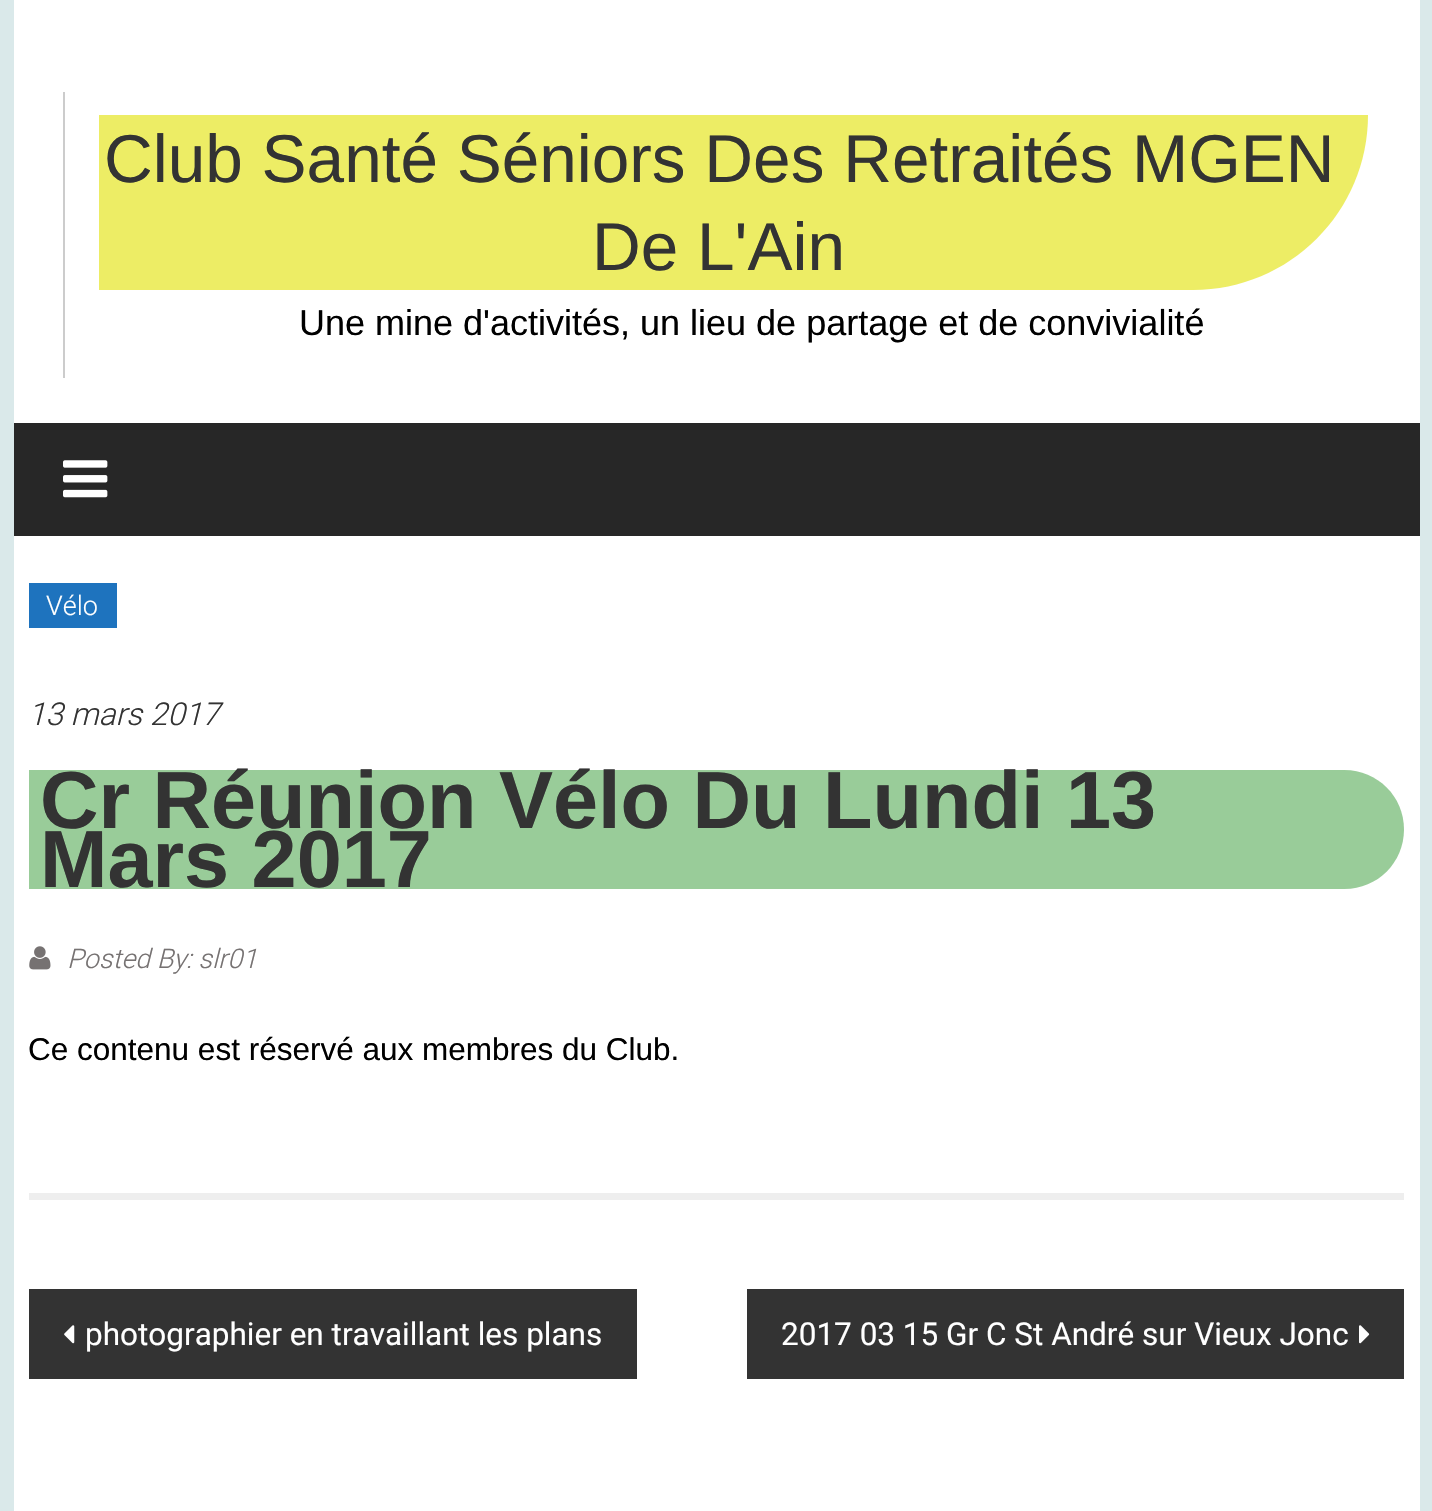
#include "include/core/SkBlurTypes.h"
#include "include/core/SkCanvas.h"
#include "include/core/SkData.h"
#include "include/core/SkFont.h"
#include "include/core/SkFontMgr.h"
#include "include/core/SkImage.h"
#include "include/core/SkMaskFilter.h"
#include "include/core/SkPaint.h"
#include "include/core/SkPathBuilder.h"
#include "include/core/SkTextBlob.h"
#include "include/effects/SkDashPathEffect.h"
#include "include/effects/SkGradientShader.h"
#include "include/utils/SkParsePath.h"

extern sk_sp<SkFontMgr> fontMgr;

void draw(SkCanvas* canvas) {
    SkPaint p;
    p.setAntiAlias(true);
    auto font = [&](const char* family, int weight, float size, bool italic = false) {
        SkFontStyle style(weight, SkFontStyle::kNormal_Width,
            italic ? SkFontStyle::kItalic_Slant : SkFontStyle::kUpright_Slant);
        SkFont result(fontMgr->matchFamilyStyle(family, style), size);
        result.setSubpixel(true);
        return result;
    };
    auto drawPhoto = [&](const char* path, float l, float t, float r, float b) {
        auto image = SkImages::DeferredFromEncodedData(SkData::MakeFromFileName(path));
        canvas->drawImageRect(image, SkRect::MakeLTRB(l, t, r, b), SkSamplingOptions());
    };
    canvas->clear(0xFFDAE9EA);
    p.setColor(0xFFFFFFFF);
    canvas->drawRect(SkRect::MakeLTRB(14, 0, 1420, 1511), p);
    p.setColor(0xFFCCCCCC);
    canvas->drawRect(SkRect::MakeLTRB(63, 92, 65, 378), p);
    p.setColor(0xFFEDED65);
    canvas->drawPath(SkPathBuilder().moveTo(99, 115).lineTo(1368, 115).cubicTo(1368, 211.5f, 1289.5f, 290, 1193, 290).lineTo(99, 290).close().detach(), p);
    auto font1 = font("Liberation Sans", 400, 67.5f);
    p.setColor(0xFF333333);
    canvas->drawString("Club Santé Séniors Des Retraités MGEN", 104, 182, font1, p);
    canvas->drawString("De L'Ain", 592, 270, font1, p);
    auto font2 = font("Liberation Sans", 400, 36);
    p.setColor(0xFF000000);
    canvas->drawString("Une mine d'activités, un lieu de partage et de convivialité", 299, 335, font2, p);
    p.setColor(0xFF272727);
    canvas->drawRect(SkRect::MakeLTRB(14, 423, 1420, 536), p);
    drawPhoto("media/1.png", 63, 460, 108, 498);
    p.setColor(0xFFEEEEEE);
    canvas->drawRect(SkRect::MakeLTRB(29, 1193, 1404, 1200), p);
    p.setColor(0xFF1E73BE);
    canvas->drawRect(SkRect::MakeLTRB(29, 583, 117, 628), p);
    auto font3 = font("Roboto", 300, 27);
    p.setColor(0xFFFFFFFF);
    canvas->drawString("Vélo", 46, 615, font3, p);
    auto font4 = font("Roboto", 300, 31.5f, true);
    p.setColor(0xFF333333);
    canvas->drawString("13 mars 2017", 28, 725, font4, p);
    p.setColor(0xFF99CC99);
    canvas->drawPath(SkPathBuilder().moveTo(29, 770).lineTo(1344.5f, 770).cubicTo(1377.5f, 770, 1404, 796.5f, 1404, 829.5f).cubicTo(1404, 862.5f, 1377.5f, 889, 1344.5f, 889).lineTo(29, 889).close().detach(), p);
    auto font5 = font("Liberation Sans", 700, 81);
    p.setColor(0xFF333333);
    canvas->drawString("Cr Réunion Vélo Du Lundi 13", 40, 828, font5, p);
    canvas->drawString("Mars 2017", 40, 887, font5, p);
    drawPhoto("media/2.png", 29, 946, 51, 970);
    auto font6 = font("Roboto", 300, 27, true);
    p.setColor(0xFF767272);
    canvas->drawString("Posted By: slr01", 67, 968, font6, p);
    auto font7 = font("Liberation Sans", 400, 31.5f);
    p.setColor(0xFF000000);
    canvas->drawString("Ce contenu est réservé aux membres du Club.", 28, 1060, font7, p);
    p.setColor(0xFF333333);
    canvas->drawRect(SkRect::MakeLTRB(29, 1289, 637, 1379), p);
    drawPhoto("media/3.png", 64, 1325, 75, 1344);
    auto font8 = font("Roboto", 400, 31.5f);
    p.setColor(0xFFFFFFFF);
    canvas->drawString("photographier en travaillant les plans", 85, 1345, font8, p);
    p.setColor(0xFF333333);
    canvas->drawRect(SkRect::MakeLTRB(747, 1289, 1404, 1379), p);
    p.setColor(0xFFFFFFFF);
    canvas->drawString("2017 03 15 Gr C St André sur Vieux Jonc", 781, 1345, font8, p);
    drawPhoto("media/4.png", 1359, 1325, 1370, 1344);
}
